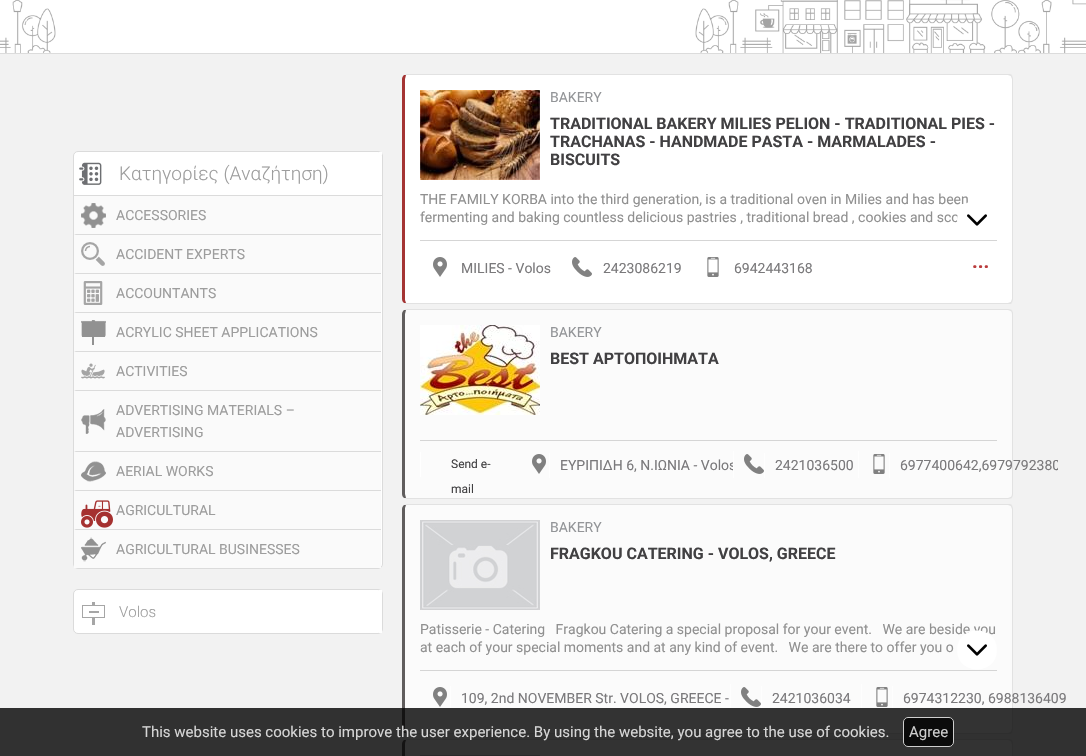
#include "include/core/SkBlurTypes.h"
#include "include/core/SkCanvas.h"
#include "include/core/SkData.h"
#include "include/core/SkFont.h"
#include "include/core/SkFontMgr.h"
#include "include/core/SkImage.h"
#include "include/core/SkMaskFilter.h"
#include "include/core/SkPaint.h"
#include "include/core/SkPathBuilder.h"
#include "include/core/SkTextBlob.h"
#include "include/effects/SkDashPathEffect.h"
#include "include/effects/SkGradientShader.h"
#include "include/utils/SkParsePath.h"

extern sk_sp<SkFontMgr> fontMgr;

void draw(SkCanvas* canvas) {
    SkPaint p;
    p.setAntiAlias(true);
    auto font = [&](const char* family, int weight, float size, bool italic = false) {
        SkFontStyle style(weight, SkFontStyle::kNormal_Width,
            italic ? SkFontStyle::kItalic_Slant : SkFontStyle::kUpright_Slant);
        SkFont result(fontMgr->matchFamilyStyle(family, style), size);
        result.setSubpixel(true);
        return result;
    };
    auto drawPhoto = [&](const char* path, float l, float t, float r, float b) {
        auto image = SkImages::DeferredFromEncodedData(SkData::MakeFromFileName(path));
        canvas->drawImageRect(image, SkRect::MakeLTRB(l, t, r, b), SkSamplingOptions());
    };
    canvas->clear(0xFFFFFFFF);
    p.setColor(0xFFDCDCDC);
    canvas->drawRect(SkRect::MakeLTRB(0, 53, 1086, 54), p);
    drawPhoto("media/1.png", 0, 0, 56, 53);
    drawPhoto("media/2.png", 695, 0, 1086, 53);
    p.setColor(0xFFF2F2F2);
    canvas->drawRect(SkRect::MakeLTRB(0, 54, 1086, 756), p);
    p.setColor(0xFFFFFFFF);
    canvas->drawRoundRect(SkRect::MakeLTRB(73.5f, 151.5f, 382.5f, 568.5f), 4.5f, 4.5f, p);
    p.setStyle(SkPaint::kStroke_Style);
    p.setStrokeWidth(1);
    p.setColor(0xFFDBDBDB);
    canvas->drawRoundRect(SkRect::MakeLTRB(73.5f, 151.5f, 382.5f, 568.5f), 4.5f, 4.5f, p);
    drawPhoto("media/3.png", 79, 162, 102, 185);
    p.setStyle(SkPaint::kFill_Style);
    canvas->drawRect(SkRect::MakeLTRB(74, 195, 382, 196), p);
    p.setColor(0xFFFFFFFF);
    canvas->drawRect(SkRect::MakeLTRB(379, 152, 382, 155), p);
    auto font1 = font("Roboto", 300, 19);
    p.setColor(0xFF9D9D9D);
    canvas->drawString("Κατηγορίες (Αναζήτηση)", 119, 180, font1, p);
    p.setColor(0xFFFAFAFA);
    canvas->drawRect(SkRect::MakeLTRB(74, 196, 381, 568), p);
    drawPhoto("media/4.png", 81, 203, 106, 228);
    auto font2 = font("Roboto", 400, 14);
    p.setColor(0xFF9D9D9D);
    canvas->drawString("ACCESSORIES", 116, 220, font2, p);
    p.setColor(0xFFDBDBDB);
    canvas->drawPath(SkPathBuilder().moveTo(74, 234).lineTo(381, 234).lineTo(381, 235).lineTo(76, 235).close().detach(), p);
    drawPhoto("media/5.png", 81, 242, 105, 266);
    p.setColor(0xFF9D9D9D);
    canvas->drawString("ACCIDENT EXPERTS", 116, 259, font2, p);
    p.setColor(0xFFDBDBDB);
    canvas->drawPath(SkPathBuilder().moveTo(74, 273).lineTo(381, 273).lineTo(381, 274).lineTo(76, 274).close().detach(), p);
    drawPhoto("media/6.png", 83, 281, 103, 305);
    p.setColor(0xFF9D9D9D);
    canvas->drawString("ACCOUNTANTS", 116, 298, font2, p);
    p.setColor(0xFFDBDBDB);
    canvas->drawPath(SkPathBuilder().moveTo(74, 312).lineTo(381, 312).lineTo(381, 313).lineTo(76, 313).close().detach(), p);
    drawPhoto("media/7.png", 81, 320, 106, 345);
    p.setColor(0xFF9D9D9D);
    canvas->drawString("ACRYLIC SHEET APPLICATIONS", 116, 337, font2, p);
    p.setColor(0xFFDBDBDB);
    canvas->drawPath(SkPathBuilder().moveTo(74, 351).lineTo(381, 351).lineTo(381, 352).lineTo(76, 352).close().detach(), p);
    drawPhoto("media/8.png", 81, 363, 105, 379);
    p.setColor(0xFF9D9D9D);
    canvas->drawString("ACTIVITIES", 116, 376, font2, p);
    p.setColor(0xFFDBDBDB);
    canvas->drawPath(SkPathBuilder().moveTo(74, 390).lineTo(381, 390).lineTo(381, 391).lineTo(76, 391).close().detach(), p);
    drawPhoto("media/9.png", 81, 409, 106, 434);
    p.setColor(0xFF9D9D9D);
    canvas->drawString("ADVERTISING MATERIALS –", 116, 415, font2, p);
    canvas->drawString("ADVERTISING", 116, 437, font2, p);
    p.setColor(0xFFDBDBDB);
    canvas->drawPath(SkPathBuilder().moveTo(74, 451).lineTo(381, 451).lineTo(381, 452).lineTo(76, 452).close().detach(), p);
    drawPhoto("media/10.png", 81, 461, 106, 482);
    p.setColor(0xFF9D9D9D);
    canvas->drawString("AERIAL WORKS", 116, 476, font2, p);
    p.setColor(0xFFDBDBDB);
    canvas->drawPath(SkPathBuilder().moveTo(74, 490).lineTo(381, 490).lineTo(381, 491).lineTo(76, 491).close().detach(), p);
    drawPhoto("media/11.png", 81, 500, 113, 528);
    p.setColor(0xFF9D9D9D);
    canvas->drawString("AGRICULTURAL", 116, 515, font2, p);
    p.setColor(0xFFDBDBDB);
    canvas->drawPath(SkPathBuilder().moveTo(74, 529).lineTo(381, 529).lineTo(381, 530).lineTo(76, 530).close().detach(), p);
    drawPhoto("media/12.png", 81, 537, 106, 562);
    p.setColor(0xFF9D9D9D);
    canvas->drawString("AGRICULTURAL BUSINESSES", 116, 554, font2, p);
    p.setColor(0xFFFFFFFF);
    canvas->drawRoundRect(SkRect::MakeLTRB(73.5f, 589.5f, 382.5f, 633.5f), 4.5f, 4.5f, p);
    p.setStyle(SkPaint::kStroke_Style);
    p.setColor(0xFFDBDBDB);
    canvas->drawRoundRect(SkRect::MakeLTRB(73.5f, 589.5f, 382.5f, 633.5f), 4.5f, 4.5f, p);
    drawPhoto("media/13.png", 82, 602, 105, 625);
    p.setStyle(SkPaint::kFill_Style);
    p.setColor(0xFFFFFFFF);
    canvas->drawRect(SkRect::MakeLTRB(379, 590, 382, 633), p);
    auto font3 = font("Roboto", 300, 15);
    p.setColor(0xFF9D9D9D);
    canvas->drawString("Volos", 119, 617, font3, p);
    p.setColor(0xFFFFFFFF);
    canvas->drawPath(SkPathBuilder().moveTo(407, 75).lineTo(1008, 75).cubicTo(1010, 75, 1012, 77, 1012, 79).lineTo(1012, 299).cubicTo(1012, 301, 1010, 303, 1008, 303).lineTo(407, 303).cubicTo(406, 303, 405, 301, 405, 299).lineTo(405, 79).cubicTo(405, 77, 406, 75, 407, 75).close().detach(), p);
    p.setColor(0xFFE2E2E2);
    canvas->drawPath(SkPathBuilder().moveTo(407, 74).lineTo(404, 75).lineTo(406, 75).lineTo(407, 75).lineTo(1008, 75).lineTo(1011, 76).lineTo(1012, 75).cubicTo(1011, 74, 1010, 74, 1008, 74).close().detach(), p);
    canvas->drawPath(SkPathBuilder().moveTo(1013, 299).lineTo(1013, 79).cubicTo(1013, 78, 1012, 76, 1012, 75).lineTo(1011, 76).lineTo(1012, 79).lineTo(1012, 299).lineTo(1011, 302).lineTo(1012, 303).cubicTo(1012, 302, 1013, 300, 1013, 299).close().detach(), p);
    canvas->drawPath(SkPathBuilder().moveTo(407, 304).lineTo(1008, 304).cubicTo(1010, 304, 1011, 304, 1012, 303).lineTo(1011, 302).lineTo(1008, 303).lineTo(407, 303).lineTo(406, 303).lineTo(404, 303).close().detach(), p);
    p.setColor(0xFFA43433);
    canvas->drawPath(SkPathBuilder().moveTo(402, 79).lineTo(402, 299).cubicTo(402, 301, 403, 302, 404, 303).lineTo(406, 303).lineTo(405, 300).lineTo(405, 116).lineTo(405, 79).lineTo(406, 75).lineTo(404, 75).cubicTo(403, 76, 402, 77, 402, 79).close().detach(), p);
    drawPhoto("media/14.png", 420, 90, 540, 180);
    p.setColor(0xFF939598);
    canvas->drawString("BAKERY", 550, 102, font2, p);
    auto font4 = font("Roboto", 700, 16);
    p.setColor(0xFF414042);
    {
        const struct { const char* s; float x, y; } items[] = {
            {"TRADITIONAL BAKERY MILIES PELION - TRADITIONAL PIES -", 550, 129},
            {"TRACHANAS - HANDMADE PASTA - MARMALADES -", 550, 147},
            {"BISCUITS", 550, 165},
        };
        for (auto [s, x, y] : items) {
            canvas->drawString(s, x, y, font4, p);
        }
    }
    p.setColor(0xFF909090);
    canvas->drawString("THE FAMILY KORBA into the third generation, is a traditional oven in Milies and has been", 420, 204, font2, p);
    canvas->drawString("fermenting and baking countless delicious pastries , traditional bread , cookies and sco", 420, 222, font2, p);
    p.setColor(0xFFFFFFFF);
    canvas->drawPath(SkPathBuilder().moveTo(997, 220).cubicTo(997, 246, 957, 246, 957, 220).cubicTo(957, 194, 997, 194, 997, 220).close().detach(), p);
    drawPhoto("media/15.png", 967, 214, 987, 226);
    p.setColor(0xFFD5D5D5);
    canvas->drawRect(SkRect::MakeLTRB(420, 240, 997, 241), p);
    drawPhoto("media/16.png", 433, 257, 447, 277);
    p.setColor(0xFF7A797B);
    canvas->drawString("MILIES - Volos", 461, 273, font2, p);
    drawPhoto("media/17.png", 572, 257, 592, 277);
    canvas->drawString("2423086219", 603, 273, font2, p);
    drawPhoto("media/18.png", 707, 257, 719, 277);
    canvas->drawString("6942443168", 734, 273, font2, p);
    auto font5 = font("Roboto", 700, 20);
    p.setColor(0xFFBA3C3D);
    canvas->drawString("...", 972, 268, font5, p);
    p.setColor(0xFFFBFBFB);
    canvas->drawPath(SkPathBuilder().moveTo(407, 310).lineTo(1008, 310).cubicTo(1010, 310, 1012, 312, 1012, 314).lineTo(1012, 494).cubicTo(1012, 496, 1010, 498, 1008, 498).lineTo(407, 498).cubicTo(406, 498, 405, 496, 405, 494).lineTo(405, 314).cubicTo(405, 312, 406, 310, 407, 310).close().detach(), p);
    p.setColor(0xFFE2E2E2);
    canvas->drawPath(SkPathBuilder().moveTo(407, 309).lineTo(404, 310).lineTo(406, 310).lineTo(407, 310).lineTo(1008, 310).lineTo(1011, 311).lineTo(1012, 310).cubicTo(1011, 310, 1010, 309, 1008, 309).close().detach(), p);
    canvas->drawPath(SkPathBuilder().moveTo(1013, 494).lineTo(1013, 313).lineTo(1012, 310).lineTo(1011, 311).cubicTo(1012, 312, 1012, 313, 1012, 314).lineTo(1012, 494).cubicTo(1012, 495, 1012, 496, 1011, 497).lineTo(1012, 498).cubicTo(1012, 497, 1013, 496, 1013, 494).close().detach(), p);
    canvas->drawPath(SkPathBuilder().moveTo(407, 499).lineTo(1008, 499).cubicTo(1010, 499, 1011, 498, 1012, 498).lineTo(1011, 497).lineTo(1008, 498).lineTo(407, 498).lineTo(406, 498).lineTo(404, 498).close().detach(), p);
    p.setColor(0xFF605D5D);
    canvas->drawPath(SkPathBuilder().moveTo(402, 314).lineTo(402, 494).cubicTo(402, 496, 403, 497, 404, 498).lineTo(406, 498).lineTo(405, 494).lineTo(405, 314).lineTo(406, 310).lineTo(404, 310).cubicTo(403, 311, 402, 312, 402, 314).close().detach(), p);
    drawPhoto("media/19.png", 420, 325, 540, 415);
    p.setColor(0xFF939598);
    canvas->drawString("BAKERY", 550, 337, font2, p);
    p.setColor(0xFF414042);
    canvas->drawString("BEST ΑΡΤΟΠΟΙΗΜΑΤΑ", 550, 364, font4, p);
    p.setColor(0xFFD5D5D5);
    canvas->drawRect(SkRect::MakeLTRB(420, 440, 997, 441), p);
    p.setColor(0xFFFFFFFF);
    canvas->drawRect(SkRect::MakeLTRB(420, 452, 421, 477), p);
    auto font6 = font("Roboto", 400, 12);
    p.setColor(0xFF414042);
    canvas->drawString("Send e-", 451, 468, font6, p);
    canvas->drawString("mail", 451, 493, font6, p);
    drawPhoto("media/20.png", 532, 454, 546, 474);
    p.setColor(0xFFFEFEFE);
    canvas->drawRect(SkRect::MakeLTRB(549, 453, 550, 478), p);
    canvas->save();
    canvas->clipRect(SkRect::MakeLTRB(519, 451, 733, 478));
    p.setColor(0xFF7A797B);
    canvas->drawString("ΕΥΡΙΠΙΔΗ 6, Ν.ΙΩΝΙΑ - Volos", 560, 470, font2, p);
    canvas->restore();
    p.setColor(0xFFFEFEFE);
    canvas->drawRect(SkRect::MakeLTRB(733, 451, 734, 478), p);
    drawPhoto("media/21.png", 744, 454, 764, 474);
    canvas->drawRect(SkRect::MakeLTRB(764, 453, 765, 478), p);
    p.setColor(0xFF7A797B);
    canvas->drawString("2421036500", 775, 470, font2, p);
    p.setColor(0xFFFEFEFE);
    canvas->drawRect(SkRect::MakeLTRB(858, 451, 859, 478), p);
    drawPhoto("media/22.png", 873, 454, 885, 474);
    canvas->drawRect(SkRect::MakeLTRB(889, 453, 890, 478), p);
    canvas->save();
    canvas->clipRect(SkRect::MakeLTRB(859, 451, 1058, 478));
    p.setColor(0xFF7A797B);
    canvas->drawString("6977400642,6979792380", 900, 470, font2, p);
    canvas->restore();
    p.setColor(0xFFFBFBFB);
    canvas->drawPath(SkPathBuilder().moveTo(407, 505).lineTo(1008, 505).cubicTo(1010, 505, 1012, 507, 1012, 509).lineTo(1012, 729).cubicTo(1012, 731, 1010, 733, 1008, 733).lineTo(407, 733).cubicTo(406, 733, 405, 731, 405, 729).lineTo(405, 509).cubicTo(405, 507, 406, 505, 407, 505).close().detach(), p);
    p.setColor(0xFFE2E2E2);
    canvas->drawPath(SkPathBuilder().moveTo(407, 504).lineTo(404, 505).lineTo(406, 505).lineTo(407, 505).lineTo(1008, 505).lineTo(1011, 506).lineTo(1012, 505).cubicTo(1011, 504, 1010, 504, 1008, 504).close().detach(), p);
    canvas->drawPath(SkPathBuilder().moveTo(1013, 729).lineTo(1013, 509).cubicTo(1013, 508, 1012, 506, 1012, 505).lineTo(1011, 506).lineTo(1012, 509).lineTo(1012, 729).lineTo(1011, 732).lineTo(1012, 733).cubicTo(1012, 732, 1013, 730, 1013, 729).close().detach(), p);
    canvas->drawPath(SkPathBuilder().moveTo(407, 734).lineTo(1008, 734).cubicTo(1010, 734, 1011, 734, 1012, 733).lineTo(1011, 732).lineTo(1008, 733).lineTo(407, 733).lineTo(406, 733).lineTo(404, 733).close().detach(), p);
    p.setColor(0xFF605D5D);
    canvas->drawPath(SkPathBuilder().moveTo(402, 509).lineTo(402, 729).cubicTo(402, 731, 403, 732, 404, 733).lineTo(406, 733).lineTo(405, 729).lineTo(405, 508).lineTo(406, 505).lineTo(404, 505).cubicTo(403, 506, 402, 507, 402, 509).close().detach(), p);
    drawPhoto("media/23.png", 420, 520, 540, 610);
    p.setColor(0xFF939598);
    canvas->drawString("BAKERY", 550, 532, font2, p);
    p.setColor(0xFF414042);
    canvas->drawString("FRAGKOU CATERING - VOLOS, GREECE", 550, 559, font4, p);
    p.setColor(0xFF909090);
    canvas->drawString("Patisserie - Catering   Fragkou Catering a special proposal for your event.   We are beside you", 420, 634, font2, p);
    canvas->drawString("at each of your special moments and at any kind of event.   We are there to offer you o", 420, 652, font2, p);
    p.setColor(0xFFFFFFFF);
    canvas->drawPath(SkPathBuilder().moveTo(997, 650).cubicTo(997, 676, 957, 676, 957, 650).cubicTo(957, 624, 997, 624, 997, 650).close().detach(), p);
    drawPhoto("media/15.png", 967, 644, 987, 656);
    p.setColor(0xFFD5D5D5);
    canvas->drawRect(SkRect::MakeLTRB(420, 670, 997, 671), p);
    drawPhoto("media/20.png", 433, 687, 447, 707);
    p.setColor(0xFFFEFEFE);
    canvas->drawRect(SkRect::MakeLTRB(450, 686, 451, 711), p);
    p.setColor(0xFF7A797B);
    canvas->drawString("109, 2nd NOVEMBER Str. VOLOS, GREECE -", 461, 703, font2, p);
    p.setColor(0xFFFEFEFE);
    canvas->drawRect(SkRect::MakeLTRB(730, 684, 731, 711), p);
    drawPhoto("media/21.png", 741, 687, 761, 707);
    canvas->drawRect(SkRect::MakeLTRB(761, 686, 762, 711), p);
    p.setColor(0xFF7A797B);
    canvas->drawString("2421036034", 772, 703, font2, p);
    p.setColor(0xFFFEFEFE);
    canvas->drawRect(SkRect::MakeLTRB(861, 684, 862, 711), p);
    drawPhoto("media/22.png", 876, 687, 888, 707);
    canvas->drawRect(SkRect::MakeLTRB(892, 686, 893, 711), p);
    p.setColor(0xFF7A797B);
    canvas->drawString("6974312230, 6988136409", 903, 703, font2, p);
    p.setColor(0xFFFBFBFB);
    canvas->drawPath(SkPathBuilder().moveTo(407, 740).lineTo(1008, 740).cubicTo(1010, 740, 1012, 742, 1012, 744).lineTo(1012, 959).cubicTo(1012, 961, 1010, 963, 1008, 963).lineTo(407, 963).cubicTo(406, 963, 405, 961, 405, 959).lineTo(405, 744).cubicTo(405, 742, 406, 740, 407, 740).close().detach(), p);
    p.setColor(0xFFE2E2E2);
    canvas->drawPath(SkPathBuilder().moveTo(407, 739).lineTo(404, 740).lineTo(406, 740).lineTo(407, 740).lineTo(1008, 740).lineTo(1011, 741).lineTo(1012, 740).cubicTo(1011, 740, 1010, 739, 1008, 739).close().detach(), p);
    canvas->drawPath(SkPathBuilder().moveTo(1013, 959).lineTo(1013, 744).cubicTo(1013, 742, 1012, 741, 1012, 740).lineTo(1011, 741).lineTo(1012, 744).lineTo(1012, 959).lineTo(1011, 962).lineTo(1012, 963).cubicTo(1012, 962, 1013, 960, 1013, 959).close().detach(), p);
    p.setColor(0xFF605D5D);
    canvas->drawPath(SkPathBuilder().moveTo(402, 744).lineTo(402, 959).cubicTo(402, 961, 403, 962, 404, 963).lineTo(406, 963).lineTo(405, 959).lineTo(405, 743).lineTo(406, 740).lineTo(404, 740).cubicTo(403, 741, 402, 742, 402, 744).close().detach(), p);
    p.setColor(0xFFD1D1D3);
    canvas->drawRect(SkRect::MakeLTRB(420, 755, 540, 756), p);
    p.setColor(0xCC000000);
    canvas->drawRect(SkRect::MakeLTRB(0, 708, 1086, 756), p);
    auto font7 = font("Roboto", 400, 15);
    p.setColor(0xFFD6D6D6);
    canvas->drawString("This website uses cookies to improve the user experience. By using the website, you agree to the use of cookies.", 142, 737, font7, p);
    p.setColor(0xCC000000);
    canvas->drawRoundRect(SkRect::MakeLTRB(903, 717, 954, 747), 5, 5, p);
    p.setStyle(SkPaint::kStroke_Style);
    p.setColor(0xCCFFFFFF);
    canvas->drawRoundRect(SkRect::MakeLTRB(903.5f, 717.5f, 953.5f, 746.5f), 4.5f, 4.5f, p);
    p.setStyle(SkPaint::kFill_Style);
    p.setColor(0xFFCECECE);
    canvas->drawString("Agree", 909, 737, font7, p);
}
